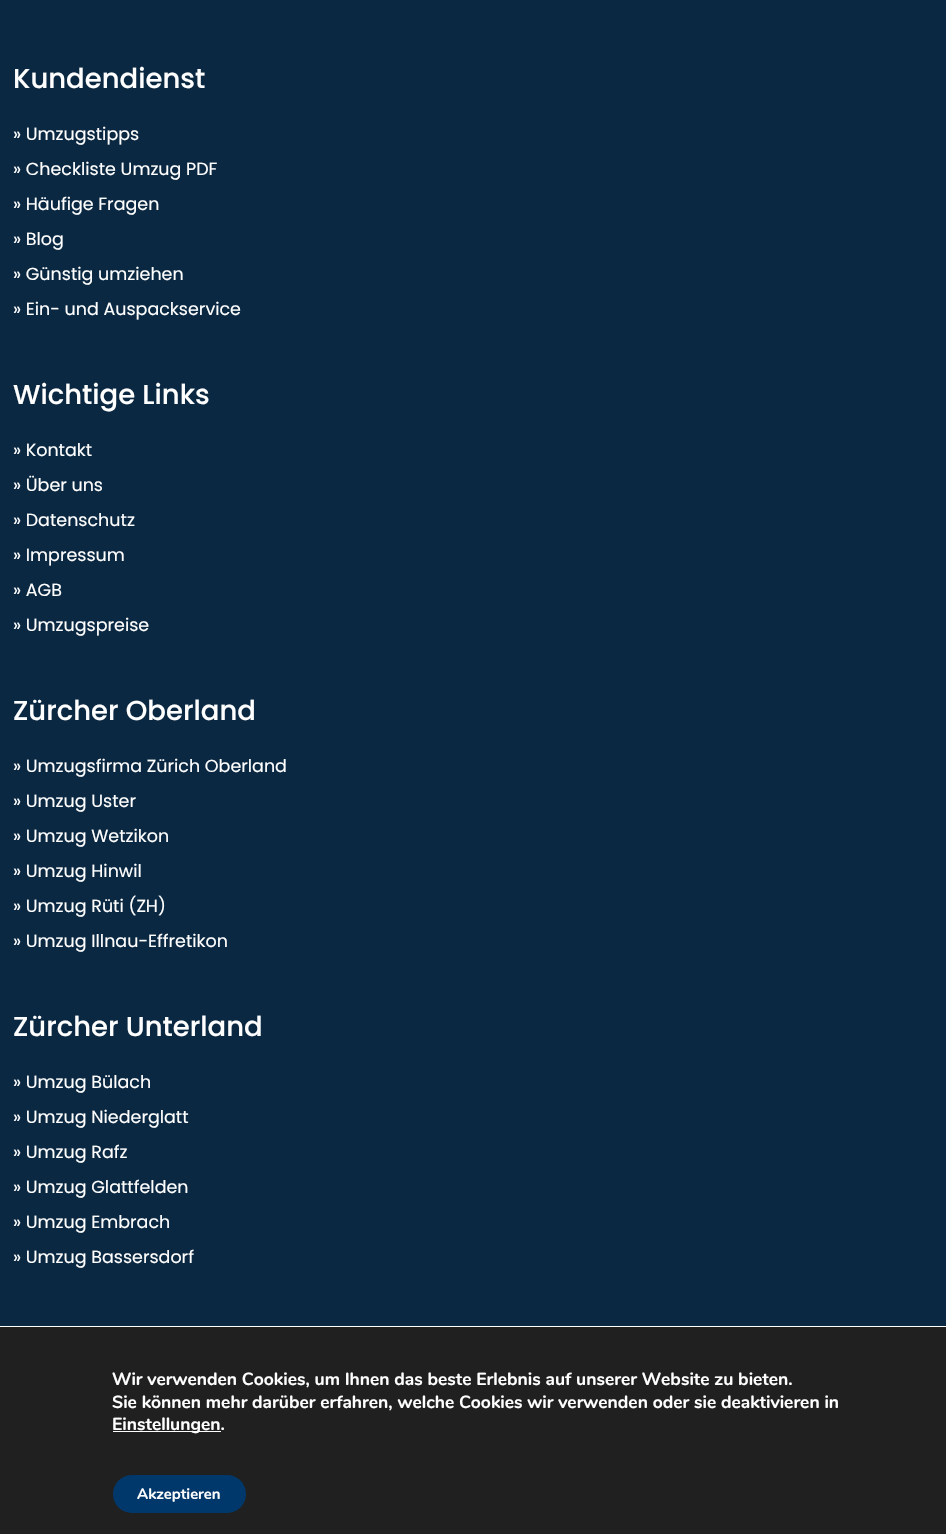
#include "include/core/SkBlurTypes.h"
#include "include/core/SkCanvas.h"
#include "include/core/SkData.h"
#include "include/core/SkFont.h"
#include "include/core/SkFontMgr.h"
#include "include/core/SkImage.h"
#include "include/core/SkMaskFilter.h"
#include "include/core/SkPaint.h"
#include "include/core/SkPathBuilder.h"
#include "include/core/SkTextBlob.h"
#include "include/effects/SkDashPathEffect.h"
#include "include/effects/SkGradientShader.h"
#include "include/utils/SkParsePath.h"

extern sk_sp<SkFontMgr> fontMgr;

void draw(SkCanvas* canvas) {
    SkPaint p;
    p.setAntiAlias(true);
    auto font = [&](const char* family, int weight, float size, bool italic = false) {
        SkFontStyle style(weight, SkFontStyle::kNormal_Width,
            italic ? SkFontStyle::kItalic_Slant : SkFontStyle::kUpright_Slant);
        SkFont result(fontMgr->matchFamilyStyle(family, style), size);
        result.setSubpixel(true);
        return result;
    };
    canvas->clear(0xFF0B2842);
    auto font1 = font("Poppins", 500, 27.5f);
    p.setColor(0xFFFFFFFF);
    canvas->drawString("Kundendienst", 13, 88, font1, p);
    auto font2 = font("Poppins", 400, 17.5f);
    {
        const struct { const char* s; float x, y; } items[] = {
            {"» Umzugstipps", 13, 140},
            {"» Checkliste Umzug PDF", 13, 175},
            {"» Häufige Fragen", 13, 210},
            {"» Blog", 13, 245},
            {"» Günstig umziehen", 13, 280},
            {"» Ein- und Auspackservice", 13, 315},
        };
        for (auto [s, x, y] : items) {
            canvas->drawString(s, x, y, font2, p);
        }
    }
    canvas->drawString("Wichtige Links", 13, 404, font1, p);
    {
        const struct { const char* s; float x, y; } items[] = {
            {"» Kontakt", 13, 456},
            {"» Über uns", 13, 491},
            {"» Datenschutz", 13, 526},
            {"» Impressum", 13, 561},
            {"» AGB", 13, 596},
            {"» Umzugspreise", 13, 631},
        };
        for (auto [s, x, y] : items) {
            canvas->drawString(s, x, y, font2, p);
        }
    }
    canvas->drawString("Zürcher Oberland", 13, 720, font1, p);
    {
        const struct { const char* s; float x, y; } items[] = {
            {"» Umzugsfirma Zürich Oberland", 13, 772},
            {"» Umzug Uster", 13, 807},
            {"» Umzug Wetzikon", 13, 842},
            {"» Umzug Hinwil", 13, 877},
            {"» Umzug Rüti (ZH)", 13, 912},
            {"» Umzug Illnau-Effretikon", 13, 947},
        };
        for (auto [s, x, y] : items) {
            canvas->drawString(s, x, y, font2, p);
        }
    }
    canvas->drawString("Zürcher Unterland", 13, 1036, font1, p);
    {
        const struct { const char* s; float x, y; } items[] = {
            {"» Umzug Bülach", 13, 1088},
            {"» Umzug Niederglatt", 13, 1123},
            {"» Umzug Rafz", 13, 1158},
            {"» Umzug Glattfelden", 13, 1193},
            {"» Umzug Embrach", 13, 1228},
            {"» Umzug Bassersdorf", 13, 1263},
        };
        for (auto [s, x, y] : items) {
            canvas->drawString(s, x, y, font2, p);
        }
    }
    p.setColor(0xFF202020);
    canvas->drawRect(SkRect::MakeLTRB(0, 1327, 946, 1534), p);
    p.setColor(0xFFFFFFFF);
    canvas->drawRect(SkRect::MakeLTRB(0, 1326, 946, 1327), p);
    auto font3 = font("Nunito", 700, 17.5f);
    canvas->drawString("Wir verwenden Cookies, um Ihnen das beste Erlebnis auf unserer Website zu bieten.", 112, 1385, font3, p);
    canvas->drawString("Sie können mehr darüber erfahren, welche Cookies wir verwenden oder sie deaktivieren in", 112, 1408, font3, p);
    canvas->drawRect(SkRect::MakeLTRB(113, 1431, 221, 1432), p);
    canvas->drawString("Einstellungen.", 112, 1430, font3, p);
    p.setColor(0xFF00386B);
    canvas->drawRoundRect(SkRect::MakeLTRB(113, 1475, 246, 1513), 19, 19, p);
    auto font4 = font("Nunito", 700, 15);
    p.setColor(0xFFFFFFFF);
    canvas->drawString("Akzeptieren", 137, 1499, font4, p);
}
